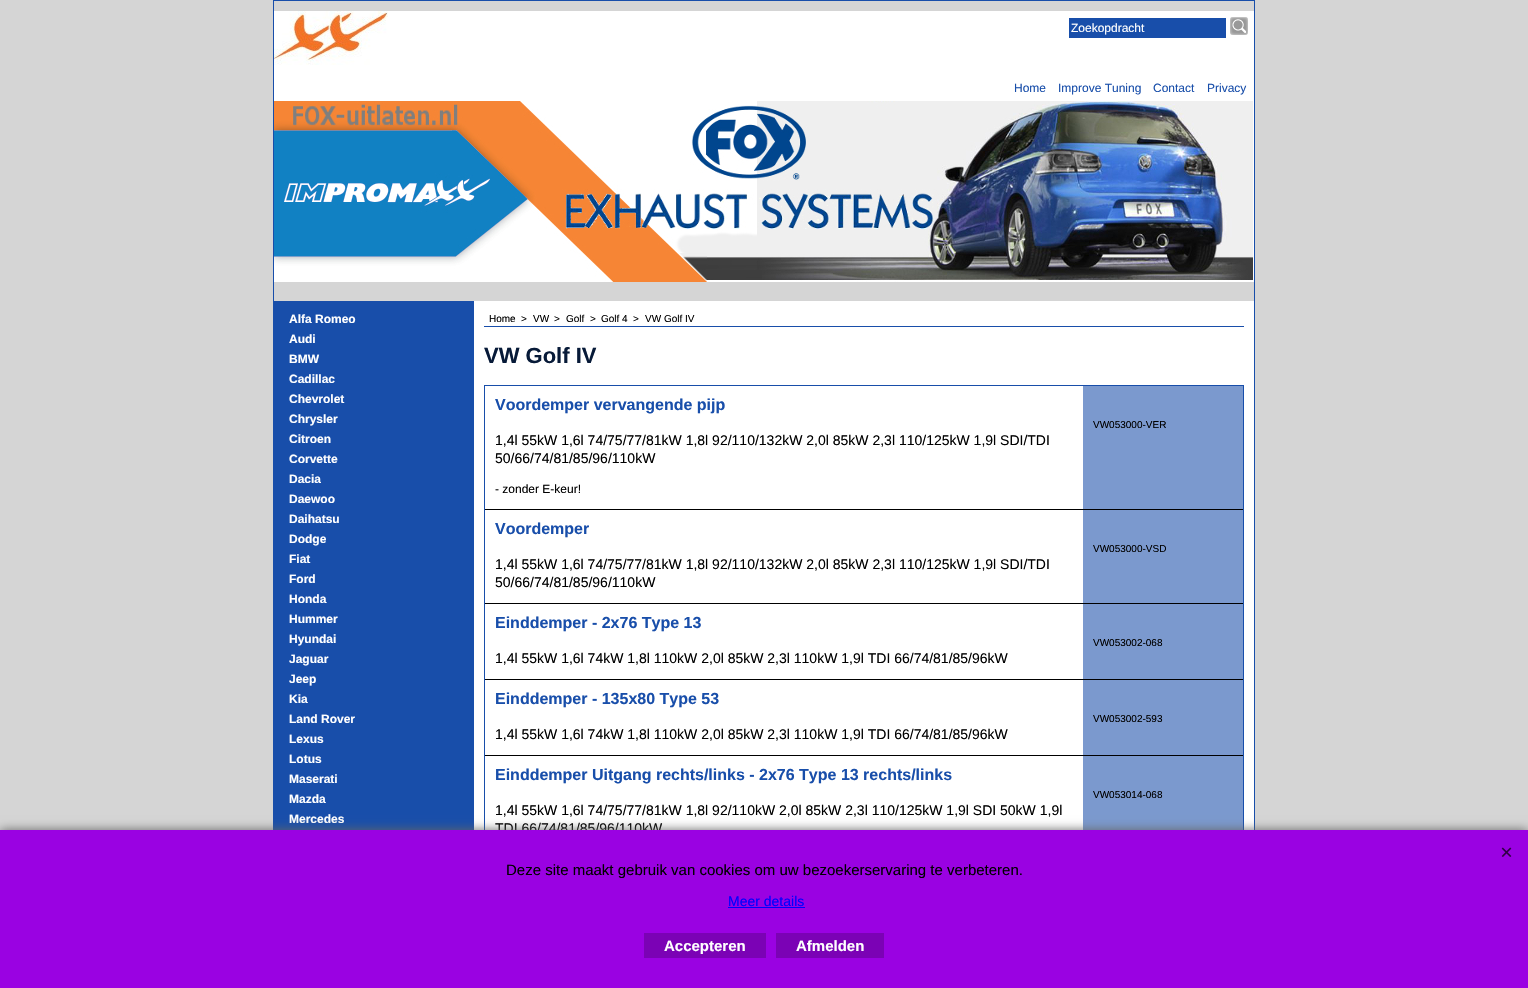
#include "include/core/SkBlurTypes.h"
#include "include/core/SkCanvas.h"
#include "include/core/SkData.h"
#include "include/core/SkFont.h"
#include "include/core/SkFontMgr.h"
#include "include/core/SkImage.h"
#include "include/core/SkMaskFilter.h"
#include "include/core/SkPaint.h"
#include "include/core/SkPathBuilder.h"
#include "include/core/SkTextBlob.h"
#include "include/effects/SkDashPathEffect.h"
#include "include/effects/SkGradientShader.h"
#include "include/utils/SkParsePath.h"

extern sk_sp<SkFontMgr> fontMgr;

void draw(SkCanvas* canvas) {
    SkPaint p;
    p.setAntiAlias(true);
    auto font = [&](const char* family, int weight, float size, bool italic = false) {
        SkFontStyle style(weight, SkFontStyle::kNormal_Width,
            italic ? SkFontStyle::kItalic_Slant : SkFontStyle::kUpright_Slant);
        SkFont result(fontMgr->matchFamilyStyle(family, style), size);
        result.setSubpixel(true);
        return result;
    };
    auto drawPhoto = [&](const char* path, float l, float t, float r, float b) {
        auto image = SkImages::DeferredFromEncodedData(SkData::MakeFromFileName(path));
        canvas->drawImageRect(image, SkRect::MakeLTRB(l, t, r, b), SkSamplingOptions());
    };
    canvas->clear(0xFFD5D5D5);
    p.setStyle(SkPaint::kStroke_Style);
    p.setStrokeWidth(1);
    p.setColor(0xFF184EAA);
    canvas->drawRect(SkRect::MakeLTRB(273.5f, 0.5f, 1254.5f, 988.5f), p);
    p.setStyle(SkPaint::kFill_Style);
    p.setColor(0xFFFFFFFF);
    canvas->drawRect(SkRect::MakeLTRB(274, 11, 1254, 101), p);
    drawPhoto("media/1.png", 274, 11, 388, 65);
    p.setColor(0xFF184EAA);
    canvas->drawRect(SkRect::MakeLTRB(1069, 18, 1226, 38), p);
    auto font1 = font("Liberation Sans", 400, 12);
    p.setColor(0xFFFFFFFF);
    canvas->drawString("Zoekopdracht", 1071, 32, font1, p);
    drawPhoto("media/2.png", 1230, 17, 1248, 35);
    p.setColor(0xFF184EAA);
    {
        const struct { const char* s; float x, y; } items[] = {
            {"Home", 1014, 92},
            {"Improve Tuning", 1058, 92},
            {"Contact", 1153, 92},
            {"Privacy", 1207, 92},
        };
        for (auto [s, x, y] : items) {
            canvas->drawString(s, x, y, font1, p);
        }
    }
    drawPhoto("media/3.png", 274, 101, 1254, 282);
    canvas->drawRect(SkRect::MakeLTRB(274, 301, 474, 830), p);
    auto font2 = font("Liberation Sans", 700, 12);
    p.setColor(0xFFFFFFFF);
    {
        const struct { const char* s; float x, y; } items[] = {
            {"Alfa Romeo", 289, 323},
            {"Audi", 289, 343},
            {"BMW", 289, 363},
            {"Cadillac", 289, 383},
            {"Chevrolet", 289, 403},
            {"Chrysler", 289, 423},
            {"Citroen", 289, 443},
            {"Corvette", 289, 463},
            {"Dacia", 289, 483},
            {"Daewoo", 289, 503},
            {"Daihatsu", 289, 523},
            {"Dodge", 289, 543},
            {"Fiat", 289, 563},
            {"Ford", 289, 583},
            {"Honda", 289, 603},
            {"Hummer", 289, 623},
            {"Hyundai", 289, 643},
            {"Jaguar", 289, 663},
            {"Jeep", 289, 683},
            {"Kia", 289, 703},
            {"Land Rover", 289, 723},
            {"Lexus", 289, 743},
            {"Lotus", 289, 763},
            {"Maserati", 289, 783},
            {"Mazda", 289, 803},
            {"Mercedes", 289, 823},
        };
        for (auto [s, x, y] : items) {
            canvas->drawString(s, x, y, font2, p);
        }
    }
    canvas->drawRect(SkRect::MakeLTRB(474, 301, 1254, 830), p);
    p.setColor(0xFF184EAA);
    canvas->drawRect(SkRect::MakeLTRB(484, 326, 1244, 327), p);
    auto font3 = font("Liberation Sans", 400, 10);
    p.setColor(0xFF000000);
    {
        const struct { const char* s; float x, y; } items[] = {
            {"Home", 489, 322},
            {">", 521, 322},
            {"VW", 533, 322},
            {">", 554, 322},
            {"Golf", 566, 322},
            {">", 590, 322},
            {"Golf 4", 601, 322},
            {">", 633, 322},
            {"VW Golf IV", 645, 322},
        };
        for (auto [s, x, y] : items) {
            canvas->drawString(s, x, y, font3, p);
        }
    }
    auto font4 = font("Liberation Sans", 700, 22);
    p.setColor(0xFF071A38);
    canvas->drawString("VW Golf IV", 484, 363, font4, p);
    p.setColor(0xFF7B99CE);
    canvas->drawRect(SkRect::MakeLTRB(1083, 386, 1243, 830), p);
    p.setStyle(SkPaint::kStroke_Style);
    p.setColor(0xFF184EAA);
    canvas->drawRect(SkRect::MakeLTRB(484.5f, 385.5f, 1243.5f, 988.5f), p);
    auto font5 = font("Liberation Sans", 700, 16);
    p.setStyle(SkPaint::kFill_Style);
    canvas->drawString("Voordemper vervangende pijp", 495, 410, font5, p);
    auto font6 = font("Liberation Sans", 400, 14);
    p.setColor(0xFF000000);
    canvas->drawString("1,4l 55kW 1,6l 74/75/77/81kW 1,8l 92/110/132kW 2,0l 85kW 2,3l 110/125kW 1,9l SDI/TDI", 495, 445, font6, p);
    canvas->drawString("50/66/74/81/85/96/110kW", 495, 463, font6, p);
    canvas->drawString("- zonder E-keur!", 495, 493, font1, p);
    canvas->drawString("VW053000-VER", 1093, 428, font3, p);
    canvas->drawRect(SkRect::MakeLTRB(485, 509, 1243, 510), p);
    p.setColor(0xFF184EAA);
    canvas->drawString("Voordemper", 495, 534, font5, p);
    p.setColor(0xFF000000);
    canvas->drawString("1,4l 55kW 1,6l 74/75/77/81kW 1,8l 92/110/132kW 2,0l 85kW 2,3l 110/125kW 1,9l SDI/TDI", 495, 569, font6, p);
    canvas->drawString("50/66/74/81/85/96/110kW", 495, 587, font6, p);
    canvas->drawString("VW053000-VSD", 1093, 552, font3, p);
    canvas->drawRect(SkRect::MakeLTRB(485, 603, 1243, 604), p);
    p.setColor(0xFF184EAA);
    canvas->drawString("Einddemper - 2x76 Type 13", 495, 628, font5, p);
    p.setColor(0xFF000000);
    canvas->drawString("1,4l 55kW 1,6l 74kW 1,8l 110kW 2,0l 85kW 2,3l 110kW 1,9l TDI 66/74/81/85/96kW", 495, 663, font6, p);
    canvas->drawString("VW053002-068", 1093, 646, font3, p);
    canvas->drawRect(SkRect::MakeLTRB(485, 679, 1243, 680), p);
    p.setColor(0xFF184EAA);
    canvas->drawString("Einddemper - 135x80 Type 53", 495, 704, font5, p);
    p.setColor(0xFF000000);
    canvas->drawString("1,4l 55kW 1,6l 74kW 1,8l 110kW 2,0l 85kW 2,3l 110kW 1,9l TDI 66/74/81/85/96kW", 495, 739, font6, p);
    canvas->drawString("VW053002-593", 1093, 722, font3, p);
    canvas->drawRect(SkRect::MakeLTRB(485, 755, 1243, 756), p);
    p.setColor(0xFF184EAA);
    canvas->drawString("Einddemper Uitgang rechts/links - 2x76 Type 13 rechts/links", 495, 780, font5, p);
    p.setColor(0xFF000000);
    canvas->drawString("1,4l 55kW 1,6l 74/75/77/81kW 1,8l 92/110kW 2,0l 85kW 2,3l 110/125kW 1,9l SDI 50kW 1,9l", 495, 815, font6, p);
    canvas->drawString("TDI 66/74/81/85/96/110kW", 495, 833, font6, p);
    canvas->drawString("VW053014-068", 1093, 798, font3, p);
    p.setColor(0xFF666666);
    p.setMaskFilter(SkMaskFilter::MakeBlur(kNormal_SkBlurStyle, 5));
    canvas->drawRect(SkRect::MakeLTRB(0, 830, 1528, 988), p);
    p.setMaskFilter(nullptr);
    p.setColor(0xFF9A02E2);
    canvas->drawRect(SkRect::MakeLTRB(0, 830, 1528, 988), p);
    drawPhoto("media/4.png", 1501, 847, 1512, 857);
    auto font7 = font("Liberation Sans", 400, 15);
    p.setColor(0xFF000000);
    canvas->drawString("Deze site maakt gebruik van cookies om uw bezoekerservaring te verbeteren.", 506, 875, font7, p);
    p.setColor(0xFF0000FF);
    canvas->drawString("Meer details", 728, 906, font6, p);
    canvas->drawRect(SkRect::MakeLTRB(728, 907, 805, 908), p);
    p.setColor(0xFF7B02B5);
    canvas->drawRect(SkRect::MakeLTRB(644, 933, 766, 958), p);
    auto font8 = font("Liberation Sans", 700, 15);
    p.setColor(0xFFFFFFFF);
    canvas->drawString("Accepteren", 664, 951, font8, p);
    p.setColor(0xFF7B02B5);
    canvas->drawRect(SkRect::MakeLTRB(776, 933, 884, 958), p);
    p.setColor(0xFFFFFFFF);
    canvas->drawString("Afmelden", 796, 951, font8, p);
}
